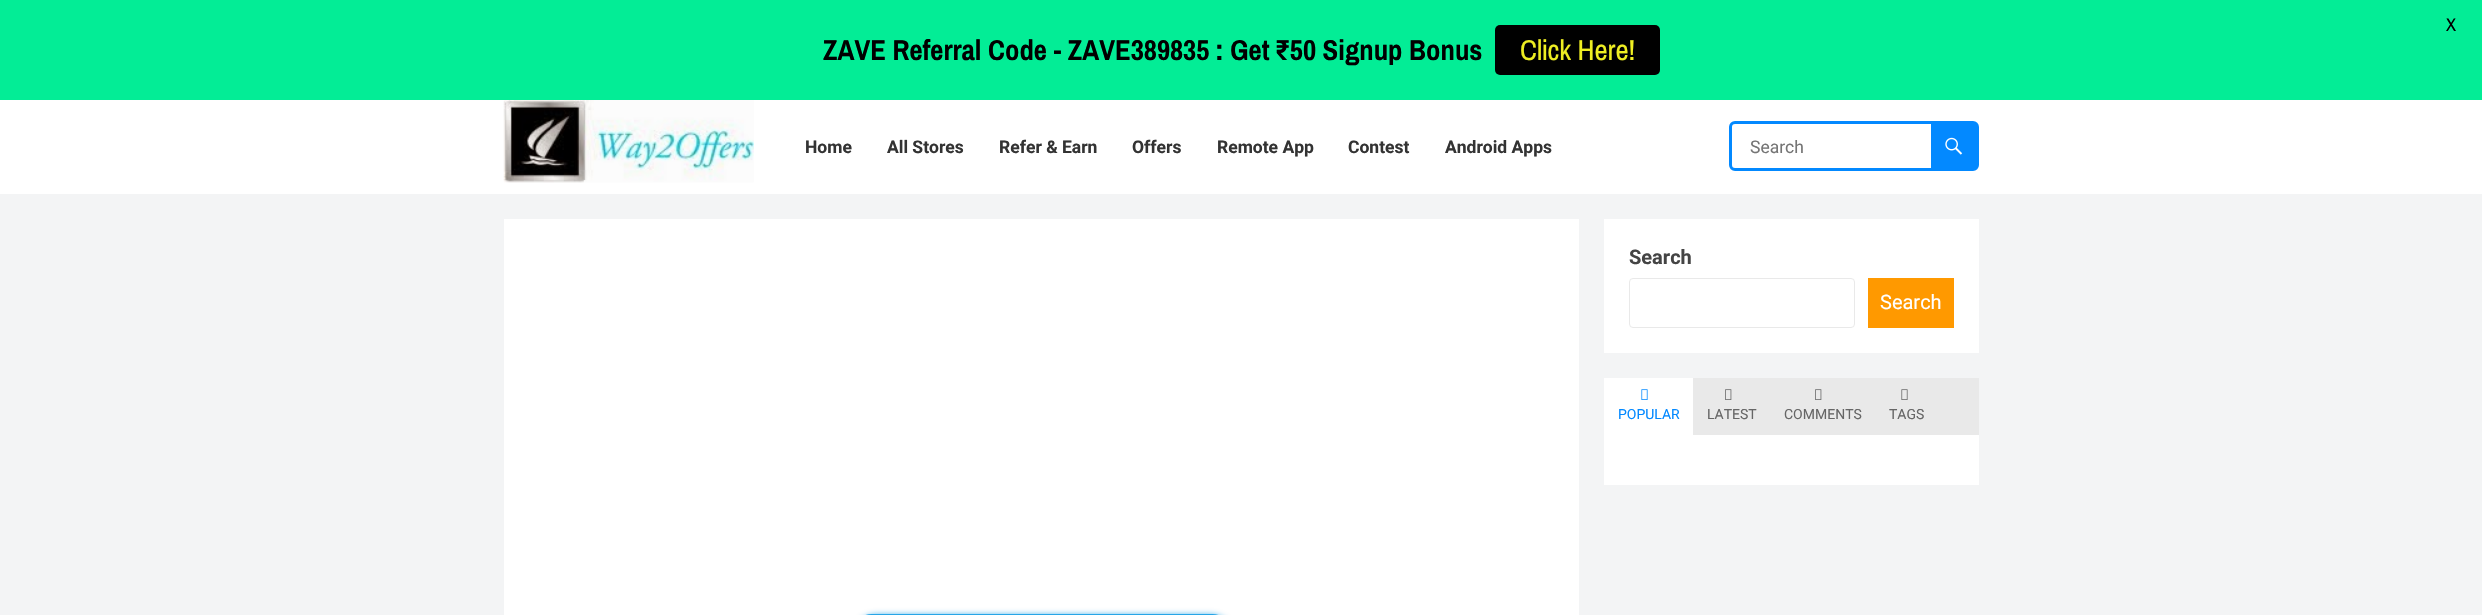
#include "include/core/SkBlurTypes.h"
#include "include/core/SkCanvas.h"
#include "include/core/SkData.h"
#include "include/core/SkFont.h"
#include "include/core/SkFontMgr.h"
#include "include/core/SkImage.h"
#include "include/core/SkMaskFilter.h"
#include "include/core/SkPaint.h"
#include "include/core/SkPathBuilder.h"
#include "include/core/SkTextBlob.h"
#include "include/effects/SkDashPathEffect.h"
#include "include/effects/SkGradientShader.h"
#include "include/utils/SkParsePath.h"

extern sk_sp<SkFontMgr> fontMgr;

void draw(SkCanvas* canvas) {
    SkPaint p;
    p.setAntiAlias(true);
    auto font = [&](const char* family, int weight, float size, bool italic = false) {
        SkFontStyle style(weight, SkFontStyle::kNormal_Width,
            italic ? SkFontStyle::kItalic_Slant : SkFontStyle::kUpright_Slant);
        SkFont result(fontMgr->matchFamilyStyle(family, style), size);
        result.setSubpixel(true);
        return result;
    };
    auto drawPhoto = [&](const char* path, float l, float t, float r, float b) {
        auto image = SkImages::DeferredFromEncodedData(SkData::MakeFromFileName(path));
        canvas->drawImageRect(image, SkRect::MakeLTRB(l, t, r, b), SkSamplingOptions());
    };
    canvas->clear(0xFFF3F4F5);
    p.setColor(0xFF03ED96);
    canvas->drawRect(SkRect::MakeLTRB(0, 0, 2482, 100), p);
    auto font1 = font("Pragati Narrow", 400, 20);
    p.setColor(0xFF000000);
    canvas->drawString("X", 2446, 31, font1, p);
    auto font2 = font("Pragati Narrow", 700, 31.25f);
    canvas->drawString("ZAVE Referral Code - ZAVE389835 : Get ₹50 Signup Bonus", 823, 60, font2, p);
    canvas->drawRoundRect(SkRect::MakeLTRB(1495, 25, 1660, 75), 5, 5, p);
    auto font3 = font("Pragati Narrow", 400, 31.25f);
    p.setColor(0xFFEEEE22);
    canvas->drawString("Click Here!", 1520, 60, font3, p);
    p.setColor(0xFFFFFFFF);
    canvas->drawRect(SkRect::MakeLTRB(0, 100, 2482, 194), p);
    drawPhoto("media/1.png", 503, 100, 754, 183);
    auto font4 = font("Roboto", 700, 17.5f);
    p.setColor(0xFF333333);
    {
        const struct { const char* s; float x, y; } items[] = {
            {"Home", 805, 153},
            {"All Stores", 887, 153},
            {"Refer & Earn", 999, 153},
            {"Offers", 1132, 153},
            {"Remote App", 1217, 153},
            {"Contest", 1348, 153},
            {"Android Apps", 1445, 153},
        };
        for (auto [s, x, y] : items) {
            canvas->drawString(s, x, y, font4, p);
        }
    }
    p.setStyle(SkPaint::kStroke_Style);
    p.setStrokeWidth(3);
    p.setColor(0xFF0389FF);
    canvas->drawRoundRect(SkRect::MakeLTRB(1730.5f, 122.5f, 1977.5f, 169.5f), 4.5f, 4.5f, p);
    auto font5 = font("Roboto", 400, 17.5f);
    p.setStyle(SkPaint::kFill_Style);
    p.setColor(0xFF757575);
    canvas->drawString("Search", 1750, 153, font5, p);
    p.setColor(0xFF0389FF);
    canvas->drawRect(SkRect::MakeLTRB(1931, 124, 1976, 168), p);
    drawPhoto("media/2.png", 1945, 137, 1963, 155);
    p.setColor(0xFFFFFFFF);
    canvas->drawRect(SkRect::MakeLTRB(504, 219, 1579, 615), p);
    canvas->save();
    canvas->clipPath(SkPathBuilder(SkPathFillType::kEvenOdd).moveTo(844, 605).lineTo(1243, 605).lineTo(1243, 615).lineTo(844, 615).close().moveTo(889, 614).lineTo(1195, 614).cubicTo(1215, 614, 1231, 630, 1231, 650).lineTo(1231, 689).cubicTo(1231, 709, 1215, 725, 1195, 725).lineTo(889, 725).cubicTo(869, 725, 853, 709, 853, 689).lineTo(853, 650).cubicTo(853, 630, 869, 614, 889, 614).close().detach(), true);
    p.setColor(0xFF27A5E7);
    p.setMaskFilter(SkMaskFilter::MakeBlur(kNormal_SkBlurStyle, 3));
    canvas->drawRoundRect(SkRect::MakeLTRB(854, 615, 1233, 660), 36, 36, p);
    p.setMaskFilter(nullptr);
    canvas->restore();
    canvas->drawRoundRect(SkRect::MakeLTRB(853, 614, 1231, 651), 36, 36, p);
    p.setColor(0xFFFFFFFF);
    canvas->drawRect(SkRect::MakeLTRB(1604, 219, 1979, 353), p);
    auto font6 = font("Roboto", 700, 20);
    p.setColor(0xFF444444);
    canvas->drawString("Search", 1629, 264, font6, p);
    p.setStyle(SkPaint::kStroke_Style);
    p.setStrokeWidth(1);
    p.setColor(0xFFE9E9E9);
    canvas->drawRoundRect(SkRect::MakeLTRB(1629.5f, 278.5f, 1854.5f, 327.5f), 3.5f, 3.5f, p);
    p.setStyle(SkPaint::kFill_Style);
    p.setColor(0xFFFF9900);
    canvas->drawRect(SkRect::MakeLTRB(1868, 278, 1954, 328), p);
    auto font7 = font("Roboto", 400, 20);
    p.setColor(0xFFFFFFFF);
    canvas->drawString("Search", 1880, 309, font7, p);
    p.setColor(0xFFE9E9E9);
    canvas->drawRect(SkRect::MakeLTRB(1693, 378, 1979, 435), p);
    p.setColor(0xFFFFFFFF);
    canvas->drawRect(SkRect::MakeLTRB(1604, 378, 1693, 435), p);
    drawPhoto("media/3.png", 1641, 389, 1648, 400);
    auto font8 = font("Roboto", 400, 14);
    p.setColor(0xFF0389FF);
    canvas->drawString("POPULAR", 1618, 419, font8, p);
    drawPhoto("media/4.png", 1725, 389, 1732, 400);
    p.setColor(0xFF666666);
    canvas->drawString("LATEST", 1707, 419, font8, p);
    drawPhoto("media/4.png", 1815, 389, 1822, 400);
    canvas->drawString("COMMENTS", 1784, 419, font8, p);
    drawPhoto("media/5.png", 1901, 389, 1908, 400);
    canvas->drawString("TAGS", 1889, 419, font8, p);
    p.setColor(0xFFFFFFFF);
    canvas->drawRect(SkRect::MakeLTRB(1604, 435, 1979, 485), p);
}
